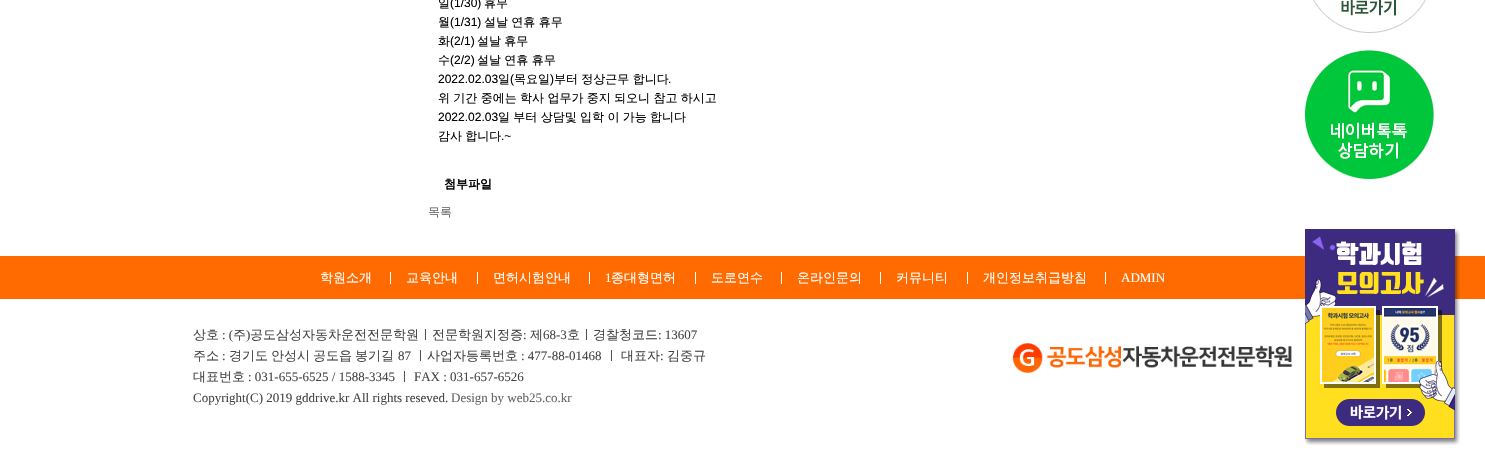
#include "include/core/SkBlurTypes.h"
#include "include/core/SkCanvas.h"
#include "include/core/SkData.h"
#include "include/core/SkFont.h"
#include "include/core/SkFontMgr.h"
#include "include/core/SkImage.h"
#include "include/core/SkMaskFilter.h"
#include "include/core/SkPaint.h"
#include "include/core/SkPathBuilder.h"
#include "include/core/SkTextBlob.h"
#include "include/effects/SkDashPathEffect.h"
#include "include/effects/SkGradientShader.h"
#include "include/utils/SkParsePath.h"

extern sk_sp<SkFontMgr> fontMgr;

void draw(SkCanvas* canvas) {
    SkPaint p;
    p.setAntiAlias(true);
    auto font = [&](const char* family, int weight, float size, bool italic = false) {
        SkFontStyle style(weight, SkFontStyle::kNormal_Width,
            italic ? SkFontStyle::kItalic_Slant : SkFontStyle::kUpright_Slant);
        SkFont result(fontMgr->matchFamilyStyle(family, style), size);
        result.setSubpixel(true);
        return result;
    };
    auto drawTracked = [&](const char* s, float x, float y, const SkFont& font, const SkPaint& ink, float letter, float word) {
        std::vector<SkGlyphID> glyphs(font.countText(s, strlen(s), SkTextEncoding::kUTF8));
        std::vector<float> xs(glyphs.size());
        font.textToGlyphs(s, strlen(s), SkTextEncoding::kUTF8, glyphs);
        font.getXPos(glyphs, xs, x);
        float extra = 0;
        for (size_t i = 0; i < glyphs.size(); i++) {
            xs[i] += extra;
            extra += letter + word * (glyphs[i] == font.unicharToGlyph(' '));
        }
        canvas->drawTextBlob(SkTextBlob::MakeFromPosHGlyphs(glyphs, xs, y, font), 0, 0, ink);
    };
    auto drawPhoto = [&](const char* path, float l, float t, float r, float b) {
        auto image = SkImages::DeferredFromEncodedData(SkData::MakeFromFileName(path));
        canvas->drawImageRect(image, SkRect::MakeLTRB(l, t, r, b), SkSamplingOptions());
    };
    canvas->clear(0xFFFFFFFF);
    auto font1 = font("WenQuanYi Zen Hei", 500, 12);
    p.setColor(0xFF000000);
    canvas->drawString("일", 438, 7, font1, p);
    auto font2 = font("Liberation Sans", 400, 12);
    canvas->drawString("(1/30)", 450, 7, font2, p);
    canvas->drawString("휴무", 484, 7, font1, p);
    canvas->drawString("월", 438, 26, font1, p);
    canvas->drawString("(1/31)", 450, 26, font2, p);
    drawTracked("설날 연휴 휴무", 484, 26, font1, p, 0, -0.25f);
    canvas->drawString("화", 438, 45, font1, p);
    canvas->drawString("(2/1)", 450, 45, font2, p);
    drawTracked("설날 휴무", 477, 45, font1, p, 0, -0.25f);
    canvas->drawString("수", 438, 64, font1, p);
    canvas->drawString("(2/2)", 450, 64, font2, p);
    drawTracked("설날 연휴 휴무", 477, 64, font1, p, 0, -0.25f);
    canvas->drawString("2022.02.03", 438, 83, font2, p);
    canvas->drawString("일", 498, 83, font1, p);
    canvas->drawString("(", 510, 83, font2, p);
    canvas->drawString("목요일", 514, 83, font1, p);
    canvas->drawString(")", 550, 83, font2, p);
    drawTracked("부터 정상근무 합니다", 554, 83, font1, p, 0, -0.25f);
    canvas->drawString(".", 668, 83, font2, p);
    drawTracked("위 기간 중에는 학사 업무가 중지 되오니 참고 하시고", 438, 102, font1, p, 0, -0.25f);
    canvas->drawString("2022.02.03", 438, 121, font2, p);
    drawTracked("일 부터 상담및 입학 이 가능 합니다", 498, 121, font1, p, 0, -0.25f);
    drawTracked("감사 합니다", 438, 140, font1, p, 0, -0.25f);
    canvas->drawString(".~", 501, 140, font2, p);
    auto font3 = font("WenQuanYi Zen Hei", 700, 12);
    canvas->drawString("첨부파일", 444, 188, font3, p);
    p.setColor(0xFF666666);
    canvas->drawString("목록", 428, 216, font1, p);
    p.setColor(0xFFFF6B00);
    canvas->drawRect(SkRect::MakeLTRB(0, 256, 1485, 299), p);
    auto font4 = font("WenQuanYi Zen Hei", 500, 13);
    p.setColor(0xFFFFFFFF);
    canvas->drawString("학원소개", 320, 282, font4, p);
    canvas->drawRect(SkRect::MakeLTRB(390, 272, 391, 284), p);
    canvas->drawString("교육안내", 406, 282, font4, p);
    canvas->drawRect(SkRect::MakeLTRB(477, 272, 478, 284), p);
    canvas->drawString("면허시험안내", 493, 282, font4, p);
    canvas->drawRect(SkRect::MakeLTRB(589, 272, 590, 284), p);
    auto font5 = font("Liberation Serif", 400, 13);
    canvas->drawString("1", 605, 282, font5, p);
    canvas->drawString("종대형면허", 611, 282, font4, p);
    canvas->drawRect(SkRect::MakeLTRB(695, 272, 696, 284), p);
    canvas->drawString("도로연수", 711, 282, font4, p);
    canvas->drawRect(SkRect::MakeLTRB(781, 272, 782, 284), p);
    canvas->drawString("온라인문의", 797, 282, font4, p);
    canvas->drawRect(SkRect::MakeLTRB(880, 272, 881, 284), p);
    canvas->drawString("커뮤니티", 896, 282, font4, p);
    canvas->drawRect(SkRect::MakeLTRB(967, 272, 968, 284), p);
    canvas->drawString("개인정보취급방침", 983, 282, font4, p);
    canvas->drawRect(SkRect::MakeLTRB(1105, 272, 1106, 284), p);
    canvas->drawString("ADMIN", 1121, 282, font5, p);
    drawPhoto("media/1.png", 1313, 0, 1426, 33);
    drawPhoto("media/2.png", 1305, 50, 1434, 179);
    drawPhoto("media/3.png", 1305, 229, 1460, 445);
    p.setColor(0xFF454545);
    canvas->drawString("상호", 193, 339, font4, p);
    canvas->drawString(": (", 222, 339, font5, p);
    canvas->drawString("주", 233, 339, font4, p);
    canvas->drawString(")", 246, 339, font5, p);
    canvas->drawString("공도삼성자동차운전전문학원ㅣ전문학원지정증", 250, 339, font4, p);
    canvas->drawString(":", 523, 339, font5, p);
    canvas->drawString("제", 530, 339, font4, p);
    canvas->drawString("68-3", 543, 339, font5, p);
    canvas->drawString("호ㅣ경찰청코드", 567, 339, font4, p);
    canvas->drawString(": 13607", 658, 339, font5, p);
    canvas->drawString("주소", 193, 360, font4, p);
    canvas->drawString(":", 222, 360, font5, p);
    {
        const struct { const char* s; float x, y; } items[] = {
            {"경기도", 229, 360},
            {"안성시", 271, 360},
            {"공도읍", 313, 360},
            {"봉기길", 355, 360},
        };
        for (auto [s, x, y] : items) {
            canvas->drawString(s, x, y, font4, p);
        }
    }
    canvas->drawString("87", 398, 360, font5, p);
    canvas->drawString("ㅣ사업자등록번호", 414, 360, font4, p);
    canvas->drawString(": 477-88-01468", 521, 360, font5, p);
    canvas->drawString("ㅣ", 605, 360, font4, p);
    canvas->drawString("대표자", 621, 360, font4, p);
    canvas->drawString(":", 660, 360, font5, p);
    canvas->drawString("김중규", 667, 360, font4, p);
    canvas->drawString("대표번호", 193, 381, font4, p);
    canvas->drawString(": 031-655-6525 / 1588-3345", 248, 381, font5, p);
    canvas->drawString("ㅣ", 398, 381, font4, p);
    canvas->drawString("FAX : 031-657-6526", 414, 381, font5, p);
    canvas->drawString("Copyright(C) 2019 gddrive.kr All rights reseved.", 193, 402, font5, p);
    p.setColor(0xFF666666);
    canvas->drawString("Design by web25.co.kr", 451, 402, font5, p);
    drawPhoto("media/4.png", 1013, 343, 1293, 373);
}
